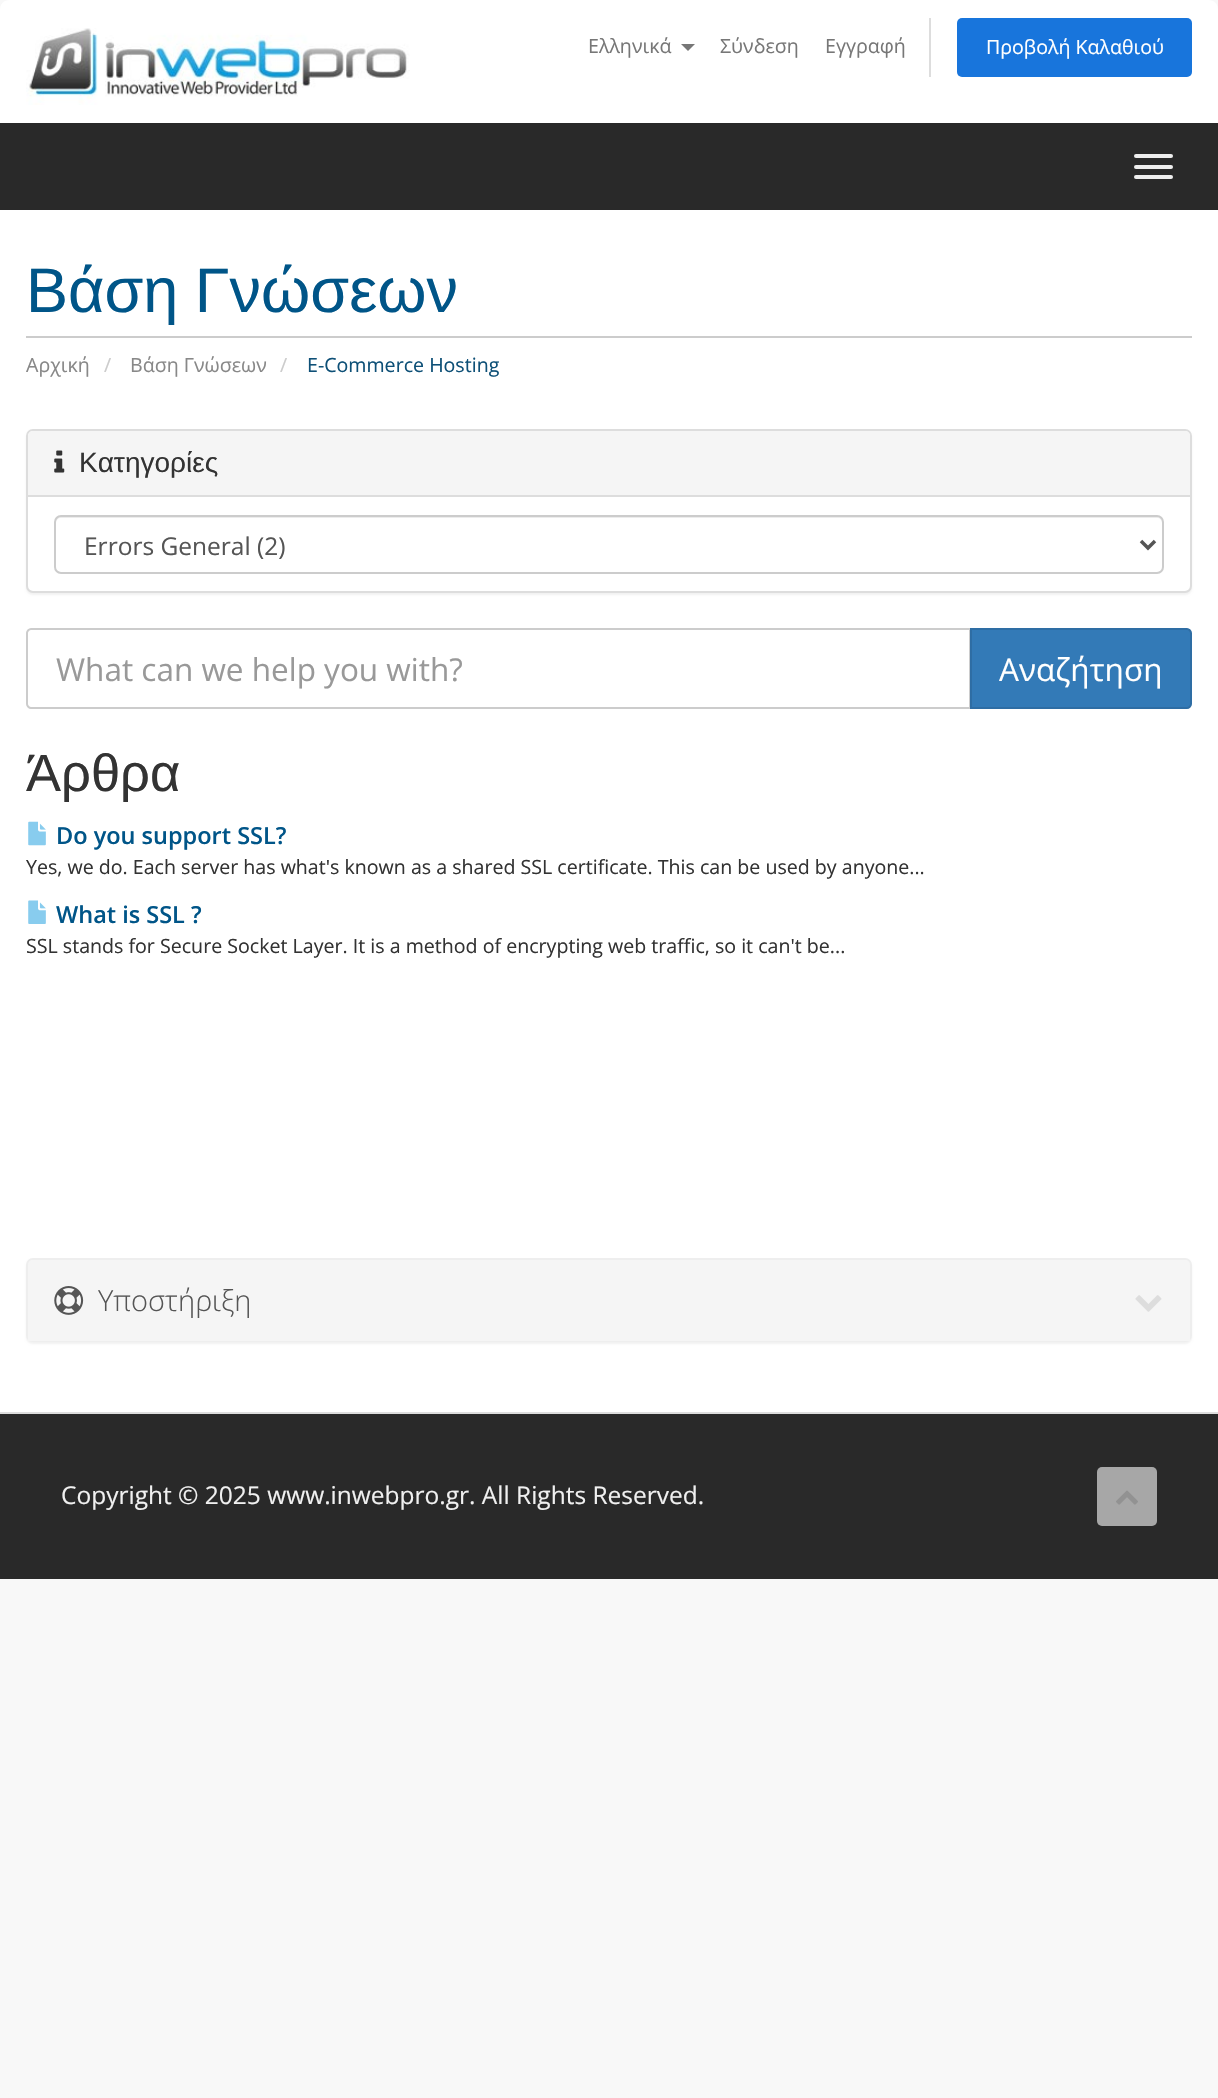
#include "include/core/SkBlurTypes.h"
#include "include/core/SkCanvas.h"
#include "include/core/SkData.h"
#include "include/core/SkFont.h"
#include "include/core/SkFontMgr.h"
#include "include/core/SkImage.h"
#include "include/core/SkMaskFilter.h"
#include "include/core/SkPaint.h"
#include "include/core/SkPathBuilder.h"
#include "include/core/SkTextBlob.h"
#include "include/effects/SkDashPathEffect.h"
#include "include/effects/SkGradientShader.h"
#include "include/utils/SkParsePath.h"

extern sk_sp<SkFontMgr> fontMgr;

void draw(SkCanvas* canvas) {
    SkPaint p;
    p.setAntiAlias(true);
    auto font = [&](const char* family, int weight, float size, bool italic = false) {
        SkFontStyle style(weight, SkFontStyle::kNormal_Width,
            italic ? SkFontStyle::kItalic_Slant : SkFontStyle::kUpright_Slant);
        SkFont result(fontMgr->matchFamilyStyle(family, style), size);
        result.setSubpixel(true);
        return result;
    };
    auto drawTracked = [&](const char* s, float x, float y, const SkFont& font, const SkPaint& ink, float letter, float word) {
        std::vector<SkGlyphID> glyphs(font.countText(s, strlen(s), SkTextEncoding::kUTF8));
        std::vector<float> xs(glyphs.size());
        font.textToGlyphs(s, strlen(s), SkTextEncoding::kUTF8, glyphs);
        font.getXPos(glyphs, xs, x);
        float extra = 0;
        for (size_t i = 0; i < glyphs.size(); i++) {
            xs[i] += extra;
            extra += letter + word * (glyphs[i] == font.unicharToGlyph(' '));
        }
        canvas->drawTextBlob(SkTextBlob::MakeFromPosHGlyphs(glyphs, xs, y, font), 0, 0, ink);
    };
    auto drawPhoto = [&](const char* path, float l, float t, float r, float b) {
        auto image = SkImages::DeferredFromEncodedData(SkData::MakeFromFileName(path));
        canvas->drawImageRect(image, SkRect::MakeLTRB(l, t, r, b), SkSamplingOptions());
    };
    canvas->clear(0xFFF8F8F8);
    p.setColor(0xFFFFFFFF);
    canvas->drawPath(SkPathBuilder().moveTo(9, 0).lineTo(1209, 0).cubicTo(1214, 0, 1218, 4, 1218, 9).lineTo(1218, 123).lineTo(0, 123).lineTo(0, 9).cubicTo(0, 4, 4, 0, 9, 0).close().detach(), p);
    drawPhoto("media/1.png", 26, 28, 410, 105);
    auto font1 = font("Open Sans", 400, 19.6f);
    p.setColor(0xFF777777);
    canvas->drawString("Ελληνικά", 588, 53, font1, p);
    canvas->drawPath(SkPathBuilder().moveTo(681, 44).lineTo(695, 44).lineTo(688, 51).close().detach(), p);
    canvas->drawString("Σύνδεση", 720, 53, font1, p);
    canvas->drawString("Εγγραφή", 825, 53, font1, p);
    p.setColor(0xFFDDDDDD);
    canvas->drawRect(SkRect::MakeLTRB(929, 18, 931, 77), p);
    p.setColor(0xFF1875DC);
    canvas->drawRoundRect(SkRect::MakeLTRB(957, 18, 1192, 77), 5, 5, p);
    p.setColor(0xFFFFFFFF);
    canvas->drawString("Προβολή Καλαθιού", 986, 54, font1, p);
    p.setColor(0xFF292929);
    canvas->drawRect(SkRect::MakeLTRB(0, 123, 1218, 210), p);
    p.setColor(0xFFEEEEEE);
    canvas->drawRoundRect(SkRect::MakeLTRB(1134, 154, 1173, 158), 2, 2, p);
    canvas->drawRoundRect(SkRect::MakeLTRB(1134, 165, 1173, 169), 2, 2, p);
    canvas->drawRoundRect(SkRect::MakeLTRB(1134, 175, 1173, 179), 2, 2, p);
    p.setColor(0xFFFFFFFF);
    canvas->drawRect(SkRect::MakeLTRB(0, 210, 1218, 1412), p);
    p.setColor(0xFFCCCCCC);
    canvas->drawRect(SkRect::MakeLTRB(26, 336, 1192, 338), p);
    auto font2 = font("Liberation Sans", 400, 63);
    p.setColor(0xFF005588);
    drawTracked("Βάση Γνώσεων", 26, 312, font2, p, 0, -1);
    p.setColor(0xFF888888);
    canvas->drawString("Αρχική", 26, 372, font1, p);
    p.setColor(0xFFCCCCCC);
    canvas->drawString("/", 104, 372, font1, p);
    p.setColor(0xFF888888);
    canvas->drawString("Βάση Γνώσεων", 130, 372, font1, p);
    p.setColor(0xFFCCCCCC);
    canvas->drawString("/", 280, 372, font1, p);
    p.setColor(0xFF0E5077);
    canvas->drawString("E-Commerce Hosting", 307, 372, font1, p);
    p.setColor(0x0D000000);
    p.setMaskFilter(SkMaskFilter::MakeBlur(kNormal_SkBlurStyle, 1));
    canvas->drawRoundRect(SkRect::MakeLTRB(26, 431, 1192, 595), 7, 7, p);
    p.setMaskFilter(nullptr);
    p.setColor(0xFFFFFFFF);
    canvas->drawRoundRect(SkRect::MakeLTRB(27, 430, 1191, 592), 6, 6, p);
    p.setStyle(SkPaint::kStroke_Style);
    p.setStrokeWidth(2);
    p.setColor(0xFFDDDDDD);
    canvas->drawRoundRect(SkRect::MakeLTRB(27, 430, 1191, 592), 6, 6, p);
    p.setStyle(SkPaint::kFill_Style);
    p.setColor(0xFFF5F5F5);
    canvas->drawPath(SkPathBuilder().moveTo(33, 431).lineTo(1185, 431).cubicTo(1188, 431, 1190, 433, 1190, 436).lineTo(1190, 497).lineTo(28, 497).lineTo(28, 436).cubicTo(28, 433, 30, 431, 33, 431).close().detach(), p);
    p.setColor(0xFFDDDDDD);
    canvas->drawRect(SkRect::MakeLTRB(28, 495, 1190, 497), p);
    drawPhoto("media/2.png", 54, 450, 65, 473);
    auto font3 = font("Liberation Sans", 400, 28);
    p.setColor(0xFF333333);
    canvas->drawString("Κατηγορίες", 79, 472, font3, p);
    p.setColor(0xFFECECEC);
    canvas->drawPath(SkPathBuilder().moveTo(61, 518).lineTo(1157, 518).cubicTo(1160, 518, 1162, 520, 1162, 523).lineTo(1162, 521).cubicTo(1162, 518, 1160, 516, 1157, 516).lineTo(61, 516).cubicTo(58, 516, 56, 518, 56, 521).lineTo(56, 523).cubicTo(56, 520, 58, 518, 61, 518).close().detach(), p);
    p.setStyle(SkPaint::kStroke_Style);
    p.setColor(0xFFCCCCCC);
    canvas->drawRoundRect(SkRect::MakeLTRB(55, 516, 1163, 573), 6, 6, p);
    p.setStrokeWidth(3.5f);
    p.setColor(0xFF555555);
    canvas->drawPath(SkPathBuilder().moveTo(1141, 541).lineTo(1148, 548).lineTo(1155, 541).detach(), p);
    auto font4 = font("Open Sans", 400, 24.5f);
    p.setStyle(SkPaint::kFill_Style);
    canvas->drawString("Errors General (2)", 84, 555, font4, p);
    p.setStyle(SkPaint::kStroke_Style);
    p.setStrokeWidth(2);
    p.setColor(0xFFCCCCCC);
    canvas->drawPath(SkPathBuilder().moveTo(31, 629).lineTo(970, 629).lineTo(970, 708).lineTo(31, 708).cubicTo(29, 708, 27, 706, 27, 704).lineTo(27, 633).cubicTo(27, 631, 29, 629, 31, 629).close().detach(), p);
    auto font5 = font("Open Sans", 400, 31.5f);
    p.setStyle(SkPaint::kFill_Style);
    p.setColor(0xFF999999);
    canvas->drawString("What can we help you with?", 56, 681, font5, p);
    p.setColor(0xFF337AB7);
    canvas->drawPath(SkPathBuilder().moveTo(971, 629).lineTo(1187, 629).cubicTo(1189, 629, 1191, 631, 1191, 633).lineTo(1191, 704).cubicTo(1191, 706, 1189, 708, 1187, 708).lineTo(971, 708).close().detach(), p);
    p.setStyle(SkPaint::kStroke_Style);
    p.setColor(0xFF2E6DA4);
    canvas->drawPath(SkPathBuilder().moveTo(971, 629).lineTo(1187, 629).cubicTo(1189, 629, 1191, 631, 1191, 633).lineTo(1191, 704).cubicTo(1191, 706, 1189, 708, 1187, 708).lineTo(971, 708).close().detach(), p);
    p.setStyle(SkPaint::kFill_Style);
    p.setColor(0xFFFFFFFF);
    canvas->drawString("Αναζήτηση", 999, 681, font5, p);
    auto font6 = font("Liberation Sans", 400, 52.5f);
    p.setColor(0xFF333333);
    canvas->drawString("Άρθρα", 26, 791, font6, p);
    drawPhoto("media/3.png", 28, 821, 46, 846);
    auto font7 = font("Open Sans", 600, 23.5f);
    p.setColor(0xFF005588);
    canvas->drawString("Do you support SSL?", 56, 844, font7, p);
    p.setColor(0xFF333333);
    canvas->drawString("Yes, we do. Each server has what's known as a shared SSL certificate. This can be used by anyone...", 26, 874, font1, p);
    drawPhoto("media/4.png", 28, 900, 46, 924);
    p.setColor(0xFF005588);
    canvas->drawString("What is SSL ?", 56, 923, font7, p);
    p.setColor(0xFF333333);
    canvas->drawString("SSL stands for Secure Socket Layer. It is a method of encrypting web traffic, so it can't be...", 26, 953, font1, p);
    p.setColor(0x0D000000);
    p.setMaskFilter(SkMaskFilter::MakeBlur(kNormal_SkBlurStyle, 1));
    canvas->drawRoundRect(SkRect::MakeLTRB(26, 1260, 1192, 1344), 7, 7, p);
    p.setMaskFilter(nullptr);
    p.setStyle(SkPaint::kStroke_Style);
    p.setColor(0xFFEEEEEE);
    canvas->drawRoundRect(SkRect::MakeLTRB(27, 1259, 1191, 1341), 6, 6, p);
    p.setStyle(SkPaint::kFill_Style);
    p.setColor(0xFFF5F5F5);
    canvas->drawPath(SkPathBuilder().moveTo(33, 1260).lineTo(1185, 1260).cubicTo(1188, 1260, 1190, 1262, 1190, 1265).lineTo(1190, 1341).lineTo(28, 1341).lineTo(28, 1265).cubicTo(28, 1262, 30, 1260, 33, 1260).close().detach(), p);
    drawPhoto("media/5.png", 54, 1286, 84, 1315);
    auto font8 = font("Open Sans", 300, 29);
    p.setColor(0xFF555555);
    canvas->drawString("Υποστήριξη", 98, 1311, font8, p);
    drawPhoto("media/6.png", 1135, 1295, 1162, 1312);
    p.setColor(0xFF292929);
    canvas->drawRect(SkRect::MakeLTRB(0, 1414, 1218, 1579), p);
    p.setColor(0xFFDDDDDD);
    canvas->drawRect(SkRect::MakeLTRB(0, 1412, 1218, 1414), p);
    p.setColor(0xFFF0F0F0);
    canvas->drawString("Copyright © 2025 www.inwebpro.gr. All Rights Reserved.", 61, 1504, font4, p);
    p.setColor(0xFFA7A7A7);
    canvas->drawRoundRect(SkRect::MakeLTRB(1097, 1467, 1157, 1526), 5, 5, p);
    drawPhoto("media/7.png", 1116, 1490, 1138, 1505);
}
